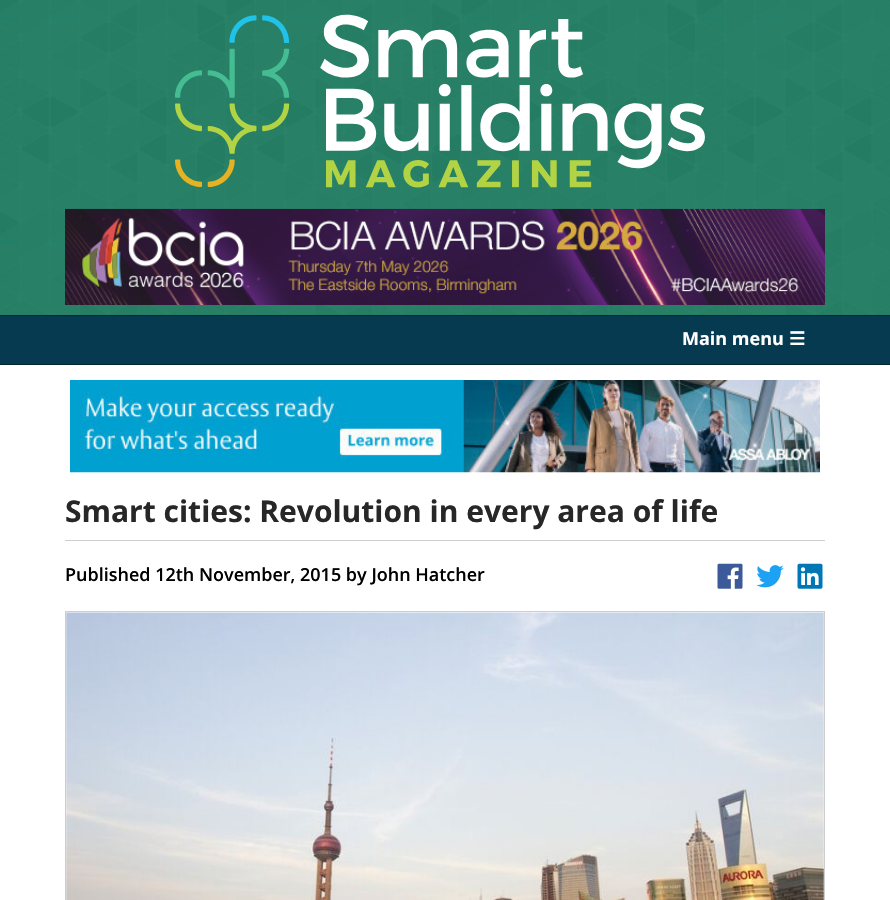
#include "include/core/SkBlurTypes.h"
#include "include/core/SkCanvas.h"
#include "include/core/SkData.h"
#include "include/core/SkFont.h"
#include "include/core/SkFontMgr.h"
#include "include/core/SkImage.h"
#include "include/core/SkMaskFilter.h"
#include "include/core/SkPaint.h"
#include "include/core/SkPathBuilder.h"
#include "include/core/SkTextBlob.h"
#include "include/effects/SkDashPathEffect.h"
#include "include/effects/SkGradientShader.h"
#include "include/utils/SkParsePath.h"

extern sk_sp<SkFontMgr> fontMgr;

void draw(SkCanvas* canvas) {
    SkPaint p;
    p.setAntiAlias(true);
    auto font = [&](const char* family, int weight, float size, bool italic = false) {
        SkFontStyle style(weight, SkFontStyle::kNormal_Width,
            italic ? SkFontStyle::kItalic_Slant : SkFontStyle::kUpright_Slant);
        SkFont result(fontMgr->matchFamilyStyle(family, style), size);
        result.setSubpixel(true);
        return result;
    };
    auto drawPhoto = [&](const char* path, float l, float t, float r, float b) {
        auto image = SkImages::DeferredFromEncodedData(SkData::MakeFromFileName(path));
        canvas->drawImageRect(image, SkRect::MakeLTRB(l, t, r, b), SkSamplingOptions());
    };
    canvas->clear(0xFFFFFFFF);
    p.setColor(0xFF046C4E);
    canvas->drawRect(SkRect::MakeLTRB(0, 0, 890, 315), p);
    drawPhoto("media/1.png", 0, 0, 890, 315);
    p.setColor(0xFF042635);
    canvas->drawRect(SkRect::MakeLTRB(0, 315, 890, 316), p);
    drawPhoto("media/2.png", 175, 14, 705, 188);
    drawPhoto("media/3.png", 65, 208, 825, 305);
    p.setColor(0xFF053A50);
    canvas->drawRect(SkRect::MakeLTRB(0, 316, 890, 364), p);
    p.setColor(0xFF042635);
    canvas->drawRect(SkRect::MakeLTRB(0, 364, 890, 365), p);
    auto font1 = font("Open Sans", 700, 18);
    p.setColor(0xFFFFFFFF);
    canvas->drawString("Main menu", 682, 345, font1, p);
    auto font2 = font("DejaVu Sans", 700, 18);
    canvas->drawString("☰", 789, 345, font2, p);
    drawPhoto("media/4.png", 70, 380, 820, 473);
    p.setColor(0xFFCDCDCF);
    canvas->drawRect(SkRect::MakeLTRB(65, 540, 825, 541), p);
    auto font3 = font("Open Sans", 700, 30);
    p.setColor(0xFF272728);
    canvas->drawString("Smart cities: Revolution in every area of life", 65, 522, font3, p);
    auto font4 = font("Open Sans", 600, 18);
    p.setColor(0xFF000000);
    canvas->drawString("Published 12th November, 2015 by John Hatcher", 65, 581, font4, p);
    drawPhoto("media/5.png", 717, 563, 743, 589);
    drawPhoto("media/6.png", 756, 565, 784, 588);
    drawPhoto("media/7.png", 797, 563, 823, 589);
    p.setStyle(SkPaint::kStroke_Style);
    p.setStrokeWidth(1);
    p.setColor(0xFFCDCDCF);
    canvas->drawRect(SkRect::MakeLTRB(65.5f, 611.5f, 824.5f, 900.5f), p);
    drawPhoto("media/8.png", 66, 612, 824, 900);
}
